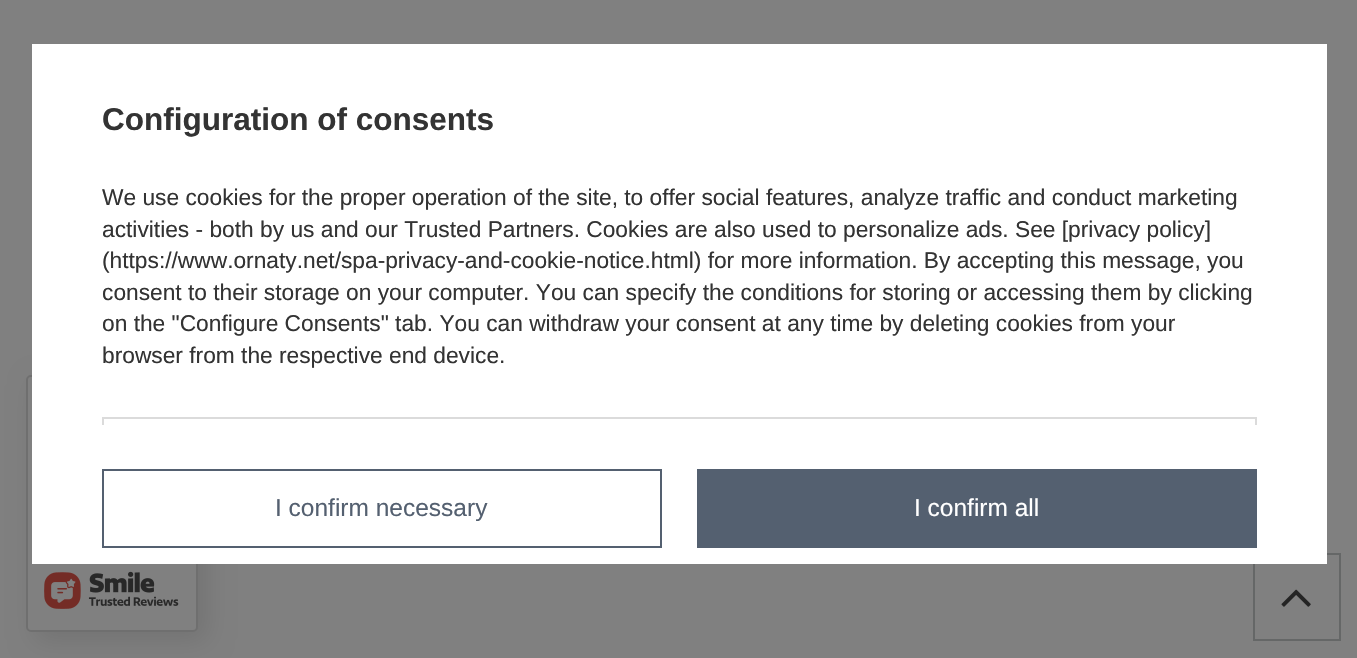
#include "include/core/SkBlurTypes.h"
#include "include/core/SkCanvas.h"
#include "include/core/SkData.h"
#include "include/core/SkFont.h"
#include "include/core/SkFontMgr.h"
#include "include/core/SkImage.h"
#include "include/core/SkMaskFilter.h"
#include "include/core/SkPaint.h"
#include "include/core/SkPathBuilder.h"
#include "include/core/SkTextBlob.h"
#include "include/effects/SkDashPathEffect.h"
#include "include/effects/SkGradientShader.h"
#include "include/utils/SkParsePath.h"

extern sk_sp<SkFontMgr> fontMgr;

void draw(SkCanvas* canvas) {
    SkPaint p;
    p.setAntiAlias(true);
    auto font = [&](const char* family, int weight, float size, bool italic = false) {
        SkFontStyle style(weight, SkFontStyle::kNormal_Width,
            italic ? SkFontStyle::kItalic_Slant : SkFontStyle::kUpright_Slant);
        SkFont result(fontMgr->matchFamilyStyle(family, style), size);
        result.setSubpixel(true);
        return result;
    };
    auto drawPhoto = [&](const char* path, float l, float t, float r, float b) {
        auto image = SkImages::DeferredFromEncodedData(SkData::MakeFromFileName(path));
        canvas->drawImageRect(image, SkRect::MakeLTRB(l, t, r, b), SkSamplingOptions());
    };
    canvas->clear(0xFF808080);
    p.setColor(0x1A000000);
    p.setMaskFilter(SkMaskFilter::MakeBlur(kNormal_SkBlurStyle, 13));
    canvas->drawRoundRect(SkRect::MakeLTRB(35, 383, 207, 641), 5, 5, p);
    p.setMaskFilter(nullptr);
    p.setColor(0xFF808080);
    canvas->drawRoundRect(SkRect::MakeLTRB(27, 376, 197, 631), 4, 4, p);
    p.setStyle(SkPaint::kStroke_Style);
    p.setStrokeWidth(2);
    p.setColor(0xFF6F6F6F);
    canvas->drawRoundRect(SkRect::MakeLTRB(27, 376, 197, 631), 4, 4, p);
    p.setColor(0xFF656767);
    canvas->drawRect(SkRect::MakeLTRB(1254, 554, 1340, 640), p);
    p.setStyle(SkPaint::kFill_Style);
    p.setColor(0xFFFFFFFF);
    canvas->drawRect(SkRect::MakeLTRB(32, 44, 1327, 564), p);
    auto font1 = font("Liberation Sans", 700, 31.5f);
    p.setColor(0xFF333333);
    canvas->drawString("Configuration of consents", 102, 130, font1, p);
    auto font2 = font("Liberation Sans", 400, 22.75f);
    {
        const struct { const char* s; float x, y; } items[] = {
            {"We use cookies for the proper operation of the site, to offer social features, analyze traffic and conduct marketing", 102, 205},
            {"activities - both by us and our Trusted Partners. Cookies are also used to personalize ads. See [privacy policy]", 102, 237},
            {"(https://www.ornaty.net/spa-privacy-and-cookie-notice.html) for more information. By accepting this message, you", 102, 268},
            {"consent to their storage on your computer. You can specify the conditions for storing or accessing them by clicking", 102, 300},
            {"on the \"Configure Consents\" tab. You can withdraw your consent at any time by deleting cookies from your", 102, 331},
            {"browser from the respective end device.", 102, 363},
        };
        for (auto [s, x, y] : items) {
            canvas->drawString(s, x, y, font2, p);
        }
    }
    {
        const struct { float l, t, r, b; SkColor color; } items[] = {
            {102, 417, 1257, 419, 0xFFDBDBDB},
            {1255, 417, 1257, 425, 0xFFDBDBDB},
            {102, 417, 104, 425, 0xFFDBDBDB},
        };
        for (auto [l, t, r, b, color] : items) {
            p.setColor(color);
            canvas->drawRect(SkRect::MakeLTRB(l, t, r, b), p);
        }
    }
    p.setStyle(SkPaint::kStroke_Style);
    p.setColor(0xFF546070);
    canvas->drawRect(SkRect::MakeLTRB(103, 470, 661, 547), p);
    auto font3 = font("Liberation Sans", 400, 24.5f);
    p.setStyle(SkPaint::kFill_Style);
    canvas->drawString("I confirm necessary", 275, 516, font3, p);
    canvas->drawRect(SkRect::MakeLTRB(697, 469, 1257, 548), p);
    p.setColor(0xFFFFFFFF);
    canvas->drawString("I confirm all", 914, 516, font3, p);
    drawPhoto("media/1.png", 44, 571, 179, 609);
    drawPhoto("media/2.png", 1281, 589, 1311, 607);
}
